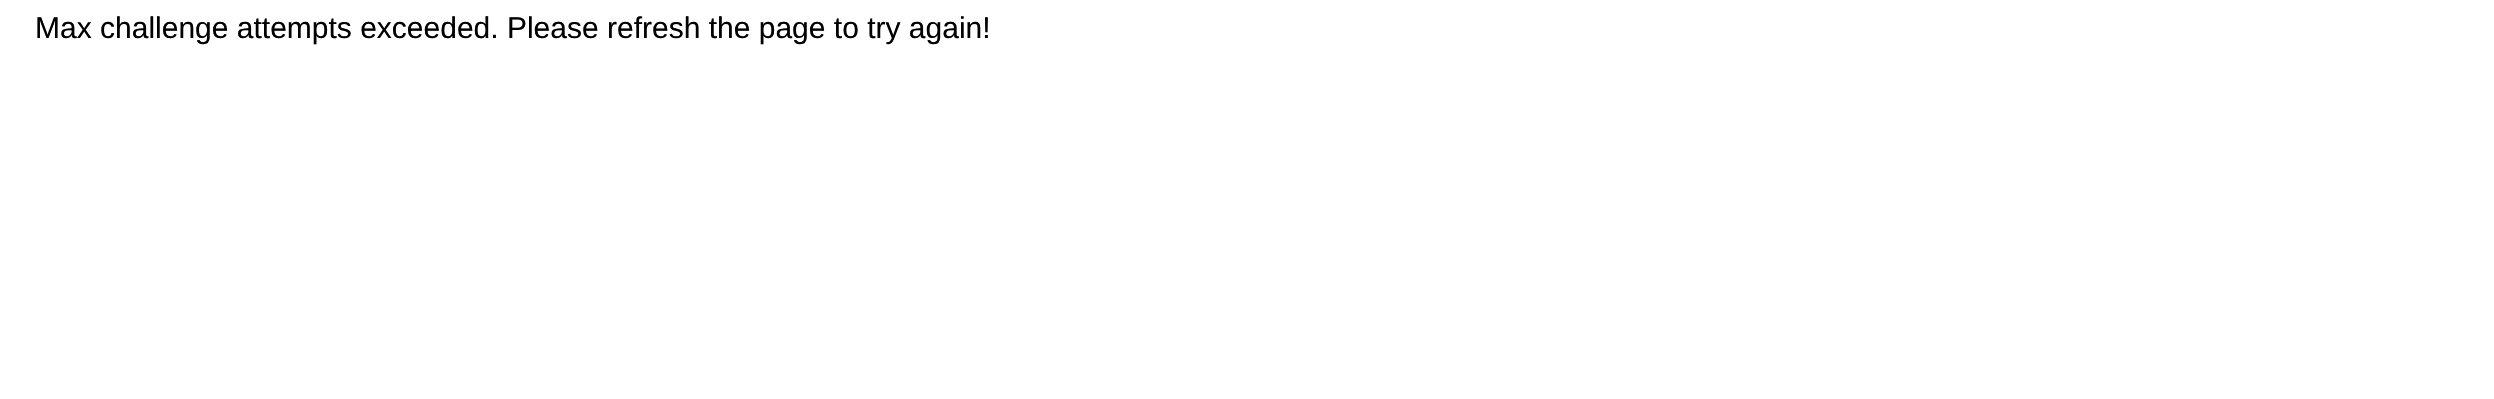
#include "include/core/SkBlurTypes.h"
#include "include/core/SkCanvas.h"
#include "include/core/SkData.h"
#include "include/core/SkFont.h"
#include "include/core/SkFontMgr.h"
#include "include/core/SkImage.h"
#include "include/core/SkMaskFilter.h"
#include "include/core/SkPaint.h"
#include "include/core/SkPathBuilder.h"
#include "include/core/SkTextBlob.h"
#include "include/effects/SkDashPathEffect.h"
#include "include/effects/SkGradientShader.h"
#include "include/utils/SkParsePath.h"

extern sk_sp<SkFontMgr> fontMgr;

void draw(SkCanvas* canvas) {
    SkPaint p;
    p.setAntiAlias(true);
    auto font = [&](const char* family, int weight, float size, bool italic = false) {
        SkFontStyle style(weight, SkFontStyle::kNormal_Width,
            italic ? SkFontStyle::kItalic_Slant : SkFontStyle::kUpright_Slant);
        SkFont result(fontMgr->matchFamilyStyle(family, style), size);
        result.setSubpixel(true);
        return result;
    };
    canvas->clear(0xFFFFFFFF);
    auto font1 = font("Liberation Sans", 400, 30);
    p.setColor(0xFF000000);
    canvas->drawString("Max challenge attempts exceeded. Please refresh the page to try again!", 35, 38, font1, p);
}
